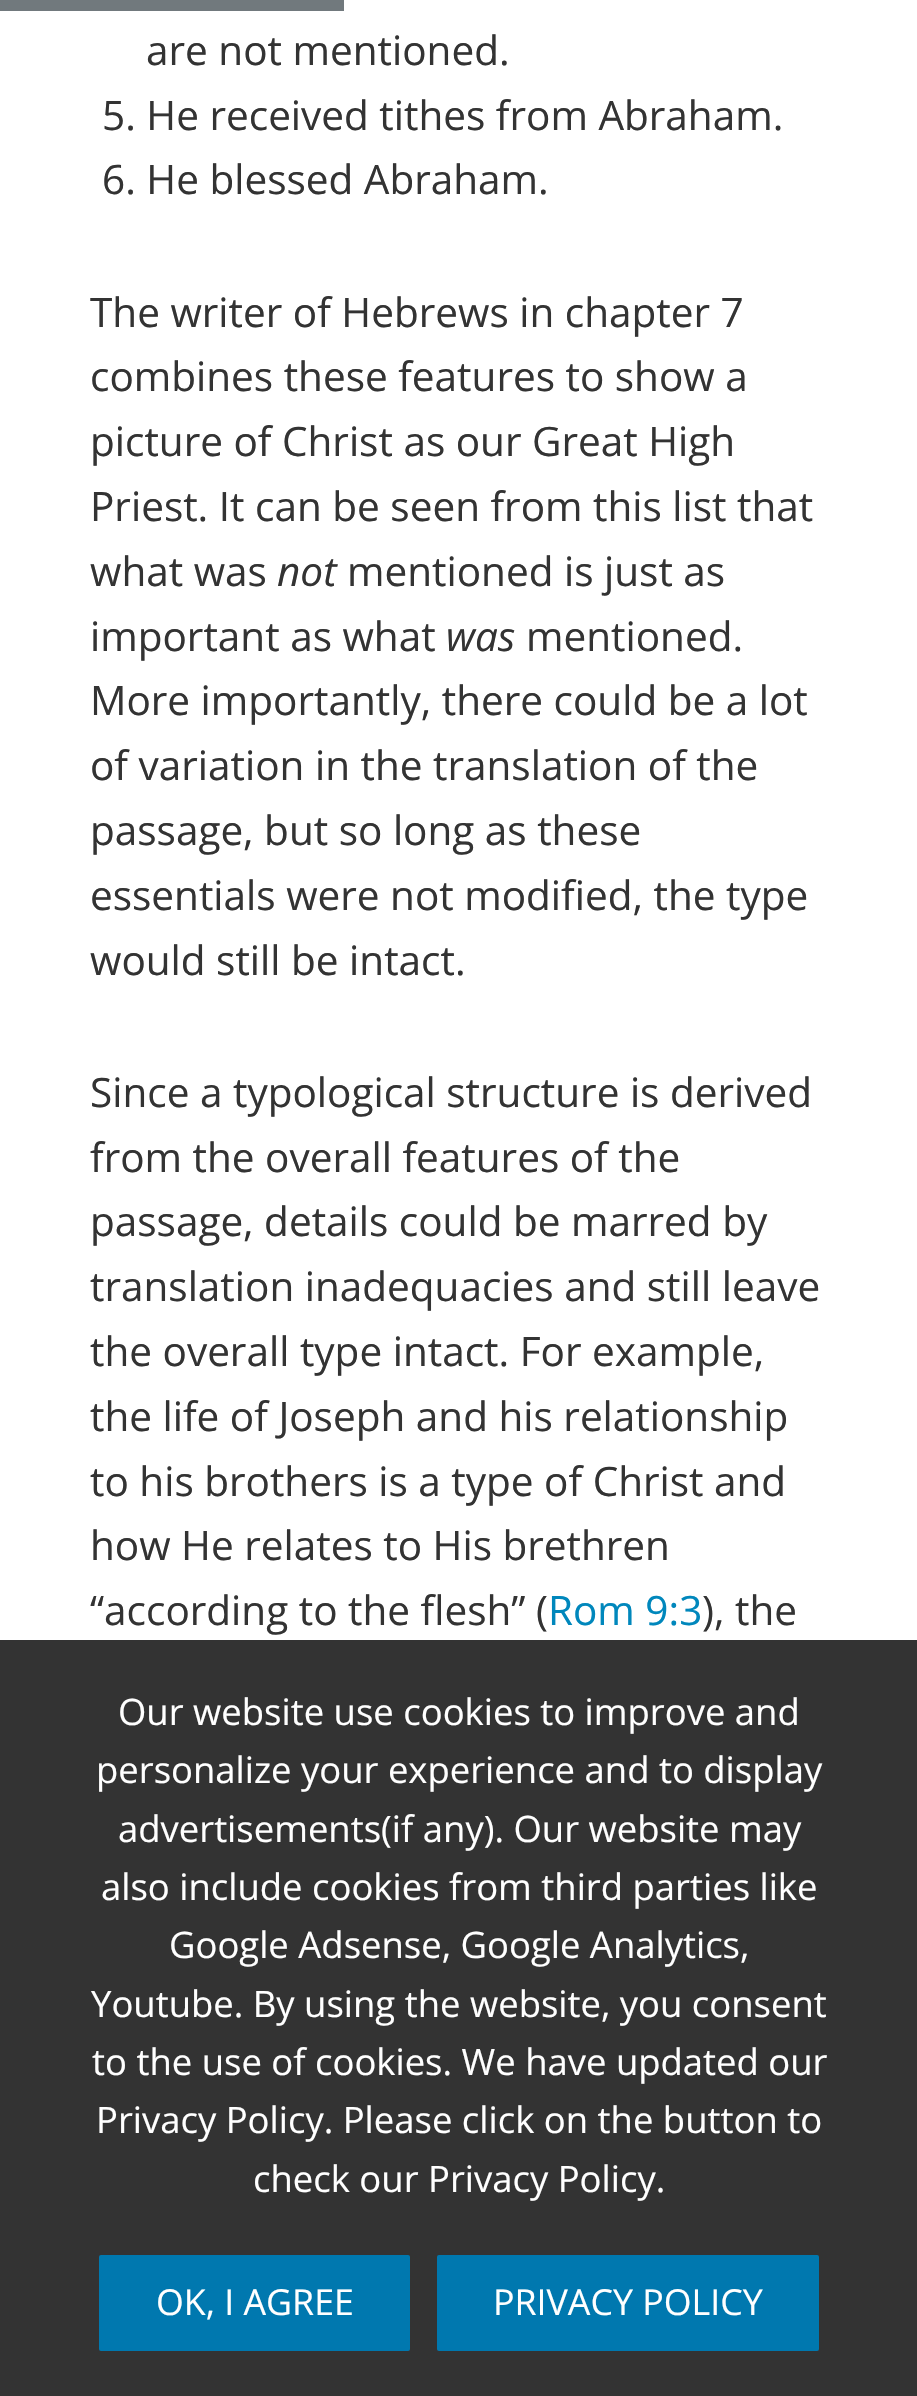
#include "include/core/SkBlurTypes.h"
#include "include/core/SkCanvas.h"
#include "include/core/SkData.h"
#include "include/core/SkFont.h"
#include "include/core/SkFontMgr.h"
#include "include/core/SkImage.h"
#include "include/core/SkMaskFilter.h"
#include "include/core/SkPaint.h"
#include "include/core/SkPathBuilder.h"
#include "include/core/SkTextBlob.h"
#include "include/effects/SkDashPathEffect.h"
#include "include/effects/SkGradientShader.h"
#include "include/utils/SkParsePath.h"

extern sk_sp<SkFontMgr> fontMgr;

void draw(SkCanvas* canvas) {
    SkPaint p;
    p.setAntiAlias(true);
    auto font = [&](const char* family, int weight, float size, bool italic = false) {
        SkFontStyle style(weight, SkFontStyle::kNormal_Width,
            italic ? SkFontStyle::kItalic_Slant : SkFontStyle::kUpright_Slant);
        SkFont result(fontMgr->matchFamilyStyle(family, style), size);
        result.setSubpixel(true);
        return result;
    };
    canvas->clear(0xFFFFFFFF);
    p.setColor(0xFF71797D);
    canvas->drawRect(SkRect::MakeLTRB(0, 0, 344, 11), p);
    auto font1 = font("Open Sans", 400, 40.5f);
    p.setColor(0xFF333333);
    {
        const struct { const char* s; float x, y; } items[] = {
            {"are not mentioned.", 146, 65},
            {"5. He received tithes from Abraham.", 102, 130},
            {"6. He blessed Abraham.", 102, 194},
            {"The writer of Hebrews in chapter 7", 90, 327},
            {"combines these features to show a", 90, 391},
            {"picture of Christ as our Great High", 90, 456},
            {"Priest. It can be seen from this list that", 90, 521},
            {"what was", 90, 586},
        };
        for (auto [s, x, y] : items) {
            canvas->drawString(s, x, y, font1, p);
        }
    }
    auto font2 = font("Open Sans", 400, 40.5f, true);
    canvas->drawString("not", 277, 586, font2, p);
    canvas->drawString("mentioned is just as", 347, 586, font1, p);
    canvas->drawString("important as what", 90, 651, font1, p);
    canvas->drawString("was", 446, 651, font2, p);
    {
        const struct { const char* s; float x, y; } items[] = {
            {"mentioned.", 526, 651},
            {"More importantly, there could be a lot", 90, 715},
            {"of variation in the translation of the", 90, 780},
            {"passage, but so long as these", 90, 845},
            {"essentials were not modified, the type", 90, 910},
            {"would still be intact.", 90, 975},
            {"Since a typological structure is derived", 90, 1107},
            {"from the overall features of the", 90, 1172},
            {"passage, details could be marred by", 90, 1236},
            {"translation inadequacies and still leave", 90, 1301},
            {"the overall type intact. For example,", 90, 1366},
            {"the life of Joseph and his relationship", 90, 1431},
            {"to his brothers is a type of Christ and", 90, 1496},
            {"how He relates to His brethren", 90, 1560},
            {"“according to the flesh” (", 90, 1625},
        };
        for (auto [s, x, y] : items) {
            canvas->drawString(s, x, y, font1, p);
        }
    }
    p.setColor(0xFF0087BC);
    canvas->drawString("Rom 9:3", 548, 1625, font1, p);
    p.setColor(0xFF333333);
    canvas->drawString("), the", 702, 1625, font1, p);
    canvas->drawRect(SkRect::MakeLTRB(0, 1640, 917, 2396), p);
    auto font3 = font("Open Sans", 400, 36.45f);
    p.setColor(0xFFFFFFFF);
    {
        const struct { const char* s; float x, y; } items[] = {
            {"Our website use cookies to improve and", 118, 1725},
            {"personalize your experience and to display", 96, 1783},
            {"advertisements(if any). Our website may", 118, 1842},
            {"also include cookies from third parties like", 101, 1900},
            {"Google Adsense, Google Analytics,", 169, 1958},
            {"Youtube. By using the website, you consent", 91, 2017},
            {"to the use of cookies. We have updated our", 92, 2075},
            {"Privacy Policy. Please click on the button to", 96, 2133},
            {"check our Privacy Policy.", 253, 2192},
        };
        for (auto [s, x, y] : items) {
            canvas->drawString(s, x, y, font3, p);
        }
    }
    p.setColor(0xFF0078AF);
    canvas->drawRoundRect(SkRect::MakeLTRB(99, 2255, 410, 2351), 2, 2, p);
    auto font4 = font("Open Sans", 400, 35.75f);
    p.setColor(0xFFFFFFFF);
    canvas->drawString("OK, I AGREE", 156, 2315, font4, p);
    p.setColor(0xFF0078AF);
    canvas->drawRoundRect(SkRect::MakeLTRB(437, 2255, 819, 2351), 2, 2, p);
    p.setColor(0xFFFFFFFF);
    canvas->drawString("PRIVACY POLICY", 493, 2315, font4, p);
}
